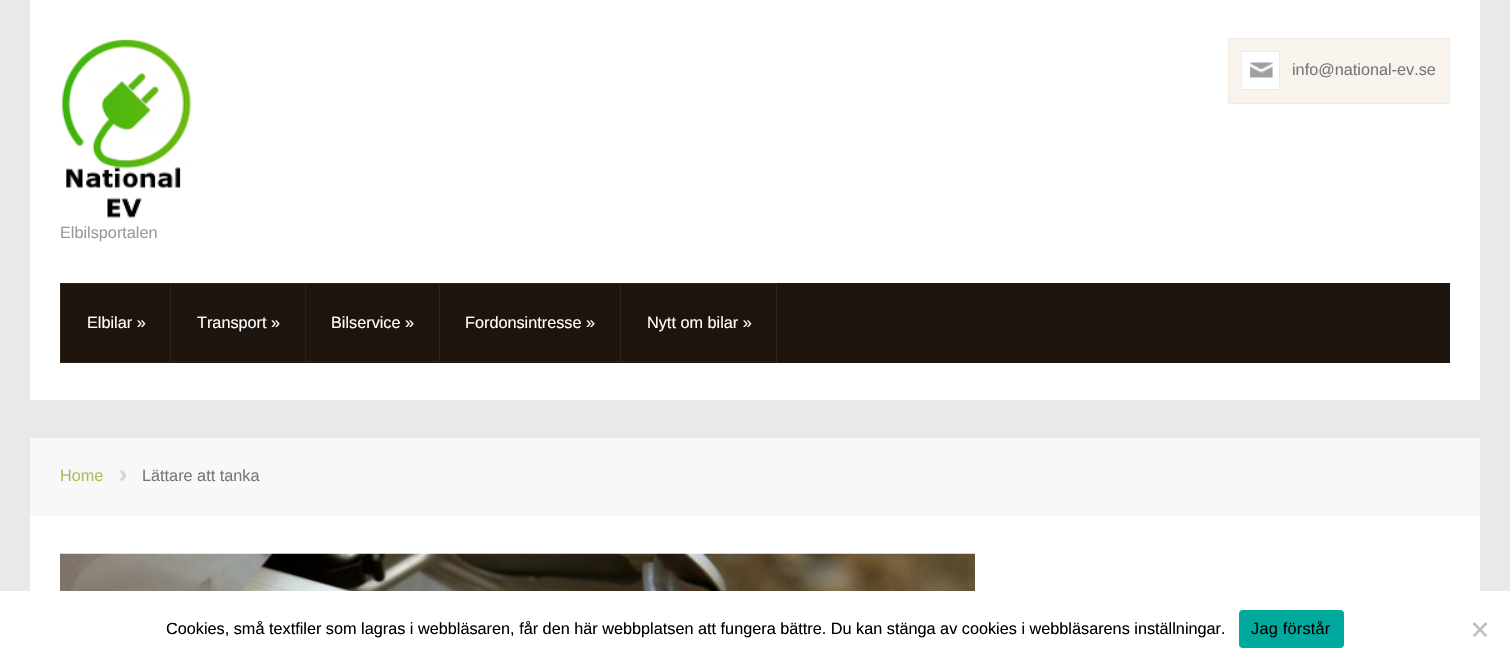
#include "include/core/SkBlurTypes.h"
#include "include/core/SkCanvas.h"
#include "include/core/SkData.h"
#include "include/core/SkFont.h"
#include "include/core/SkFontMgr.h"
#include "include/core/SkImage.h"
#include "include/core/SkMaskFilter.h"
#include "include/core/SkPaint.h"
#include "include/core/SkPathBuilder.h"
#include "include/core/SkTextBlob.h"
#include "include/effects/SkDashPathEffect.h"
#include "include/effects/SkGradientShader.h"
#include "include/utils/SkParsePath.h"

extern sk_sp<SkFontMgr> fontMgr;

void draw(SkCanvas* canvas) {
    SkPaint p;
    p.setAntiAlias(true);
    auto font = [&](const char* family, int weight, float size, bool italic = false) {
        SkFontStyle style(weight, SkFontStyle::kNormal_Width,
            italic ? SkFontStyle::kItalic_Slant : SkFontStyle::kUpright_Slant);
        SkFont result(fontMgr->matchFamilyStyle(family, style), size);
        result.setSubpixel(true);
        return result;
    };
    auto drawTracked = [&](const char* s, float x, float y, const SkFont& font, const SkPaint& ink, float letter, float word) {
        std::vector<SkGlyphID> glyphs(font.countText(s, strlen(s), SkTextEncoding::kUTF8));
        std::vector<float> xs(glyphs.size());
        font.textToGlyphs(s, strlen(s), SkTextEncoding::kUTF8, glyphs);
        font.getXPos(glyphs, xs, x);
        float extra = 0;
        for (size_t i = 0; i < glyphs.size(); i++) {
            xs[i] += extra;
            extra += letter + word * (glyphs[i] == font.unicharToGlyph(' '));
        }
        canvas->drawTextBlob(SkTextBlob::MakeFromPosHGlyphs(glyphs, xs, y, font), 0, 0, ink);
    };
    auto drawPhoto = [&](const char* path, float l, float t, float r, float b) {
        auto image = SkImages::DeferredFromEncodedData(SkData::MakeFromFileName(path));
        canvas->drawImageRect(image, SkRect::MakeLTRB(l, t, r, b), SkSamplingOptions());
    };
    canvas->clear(0xFFE9E9E9);
    p.setColor(0xFFFFFFFF);
    canvas->drawRect(SkRect::MakeLTRB(30, 0, 1480, 400), p);
    p.setColor(0xFFF9F3ED);
    canvas->drawRect(SkRect::MakeLTRB(1228.5f, 38.5f, 1449.5f, 103.5f), p);
    p.setStyle(SkPaint::kStroke_Style);
    p.setStrokeWidth(1);
    p.setColor(0xFFF2E9E1);
    canvas->drawRect(SkRect::MakeLTRB(1228.5f, 38.5f, 1449.5f, 103.5f), p);
    p.setStyle(SkPaint::kFill_Style);
    p.setColor(0xFFFFFFFF);
    canvas->drawRect(SkRect::MakeLTRB(1242, 52, 1279, 89), p);
    drawPhoto("media/1.png", 1249, 62, 1273, 78);
    p.setStyle(SkPaint::kStroke_Style);
    p.setColor(0xFFF2E9E1);
    canvas->drawRect(SkRect::MakeLTRB(1241.5f, 51.5f, 1279.5f, 89.5f), p);
    auto font1 = font("Liberation Sans", 400, 16.25f);
    p.setStyle(SkPaint::kFill_Style);
    p.setColor(0xFF777777);
    canvas->drawString("info@national-ev.se", 1292, 75, font1, p);
    drawPhoto("media/2.png", 61, 38, 192, 220);
    p.setColor(0xFF999999);
    canvas->drawString("Elbilsportalen", 60, 238, font1, p);
    p.setColor(0xFF1C140D);
    canvas->drawRect(SkRect::MakeLTRB(61, 283, 1450, 363), p);
    p.setStyle(SkPaint::kStroke_Style);
    p.setColor(0xFF2E2317);
    canvas->drawRect(SkRect::MakeLTRB(60.5f, 283.5f, 170.5f, 362.5f), p);
    p.setStyle(SkPaint::kFill_Style);
    p.setColor(0xFFFFFFFF);
    canvas->drawString("Elbilar »", 87, 328, font1, p);
    {
        const struct { float l, t, r, b; SkColor color; } items[] = {
            {171, 283, 778, 284, 0xFF2E2317},
            {305, 283, 306, 363, 0xFF2E2317},
            {171, 361, 306, 362, 0xFF2E2317},
        };
        for (auto [l, t, r, b, color] : items) {
            p.setColor(color);
            canvas->drawRect(SkRect::MakeLTRB(l, t, r, b), p);
        }
    }
    p.setColor(0xFFFFFFFF);
    canvas->drawString("Transport »", 197, 328, font1, p);
    p.setColor(0xFF2E2317);
    canvas->drawRect(SkRect::MakeLTRB(439, 283, 440, 363), p);
    canvas->drawRect(SkRect::MakeLTRB(306, 361, 440, 362), p);
    p.setColor(0xFFFFFFFF);
    canvas->drawString("Bilservice »", 331, 328, font1, p);
    p.setColor(0xFF2E2317);
    canvas->drawRect(SkRect::MakeLTRB(620, 283, 621, 363), p);
    canvas->drawRect(SkRect::MakeLTRB(440, 361, 621, 362), p);
    p.setColor(0xFFFFFFFF);
    canvas->drawString("Fordonsintresse »", 465, 328, font1, p);
    p.setColor(0xFF2E2317);
    canvas->drawRect(SkRect::MakeLTRB(776, 283, 777, 363), p);
    canvas->drawRect(SkRect::MakeLTRB(621, 361, 778, 362), p);
    p.setColor(0xFFFFFFFF);
    canvas->drawString("Nytt om bilar »", 647, 328, font1, p);
    p.setColor(0xFFF8F8F8);
    canvas->drawRect(SkRect::MakeLTRB(30, 438, 1480, 516), p);
    p.setColor(0xFFA7BE5F);
    canvas->drawString("Home", 60, 481, font1, p);
    drawPhoto("media/3.png", 120, 470, 127, 482);
    p.setColor(0xFF777777);
    canvas->drawString("Lättare att tanka", 142, 481, font1, p);
    p.setColor(0xFFFFFFFF);
    canvas->drawRect(SkRect::MakeLTRB(30, 516, 1480, 591), p);
    drawPhoto("media/4.png", 60, 553, 975, 591);
    canvas->drawRect(SkRect::MakeLTRB(0, 591, 1510, 667), p);
    p.setColor(0xFF000000);
    canvas->drawString("Cookies, små textfiler som lagras i webbläsaren, får den här webbplatsen att fungera bättre. Du kan stänga av cookies i webbläsarens inställningar.", 166, 634, font1, p);
    p.setColor(0xFF00A99D);
    canvas->drawRoundRect(SkRect::MakeLTRB(1239, 610, 1344, 648), 4, 4, p);
    p.setColor(0xFF000000);
    drawTracked("Jag förstår", 1251, 634, font1, p, 0.25f, 0);
    p.setColor(0xFFC0C0C0);
    canvas->drawPath(SkPathBuilder().moveTo(1485.5f, 622).lineTo(1487.5f, 624).lineTo(1474.5f, 637).lineTo(1472.5f, 635.5f).close().detach(), p);
    canvas->drawPath(SkPathBuilder().moveTo(1472.5f, 624).lineTo(1474.5f, 622).lineTo(1487.5f, 635.5f).lineTo(1485.5f, 637).close().detach(), p);
}
